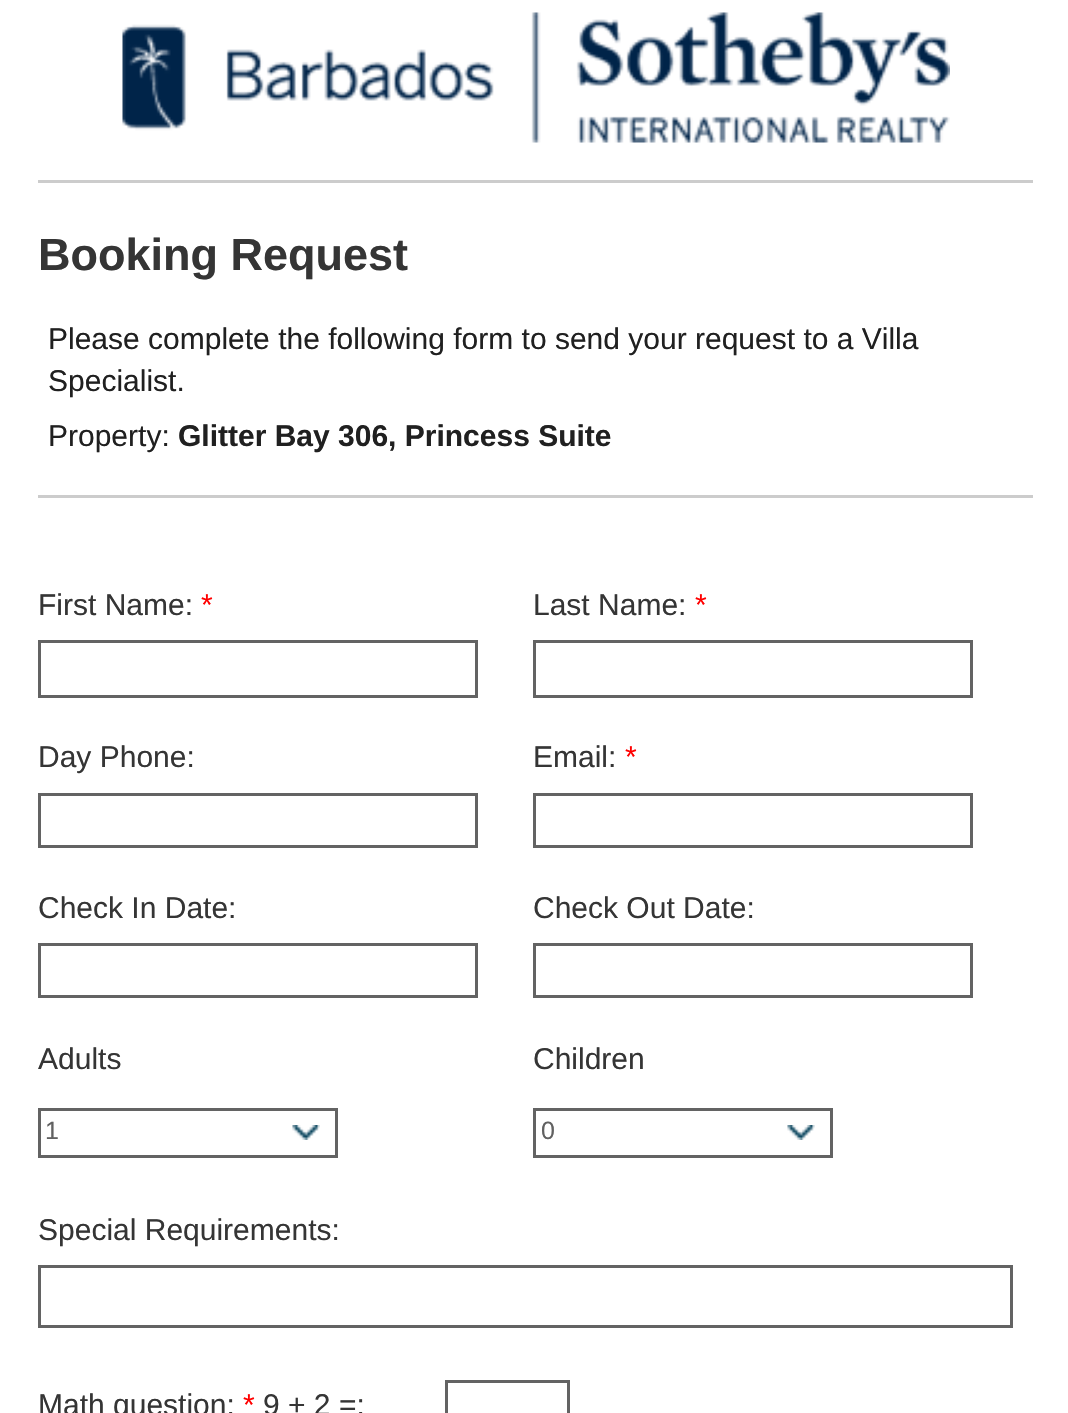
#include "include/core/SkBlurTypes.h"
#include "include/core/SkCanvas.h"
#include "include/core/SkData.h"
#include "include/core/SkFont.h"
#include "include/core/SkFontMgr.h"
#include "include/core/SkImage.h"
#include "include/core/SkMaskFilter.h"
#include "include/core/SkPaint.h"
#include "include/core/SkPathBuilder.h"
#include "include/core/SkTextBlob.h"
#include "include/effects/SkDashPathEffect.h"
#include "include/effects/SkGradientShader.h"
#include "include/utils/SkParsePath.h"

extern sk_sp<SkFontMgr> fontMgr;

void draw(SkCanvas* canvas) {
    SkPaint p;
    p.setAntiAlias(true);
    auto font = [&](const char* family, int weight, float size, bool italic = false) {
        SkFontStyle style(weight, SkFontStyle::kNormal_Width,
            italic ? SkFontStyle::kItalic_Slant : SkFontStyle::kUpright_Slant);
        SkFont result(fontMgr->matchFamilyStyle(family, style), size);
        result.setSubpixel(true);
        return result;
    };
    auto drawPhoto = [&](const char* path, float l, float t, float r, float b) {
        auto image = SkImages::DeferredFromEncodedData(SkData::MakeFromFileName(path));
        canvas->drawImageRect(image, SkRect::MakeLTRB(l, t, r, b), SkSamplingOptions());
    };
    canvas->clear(0xFFFFFFFF);
    drawPhoto("media/1.png", 122, 12, 950, 143);
    p.setColor(0xFFCCCCCC);
    canvas->drawRect(SkRect::MakeLTRB(38, 180, 1033, 183), p);
    auto font1 = font("Liberation Sans", 700, 45);
    p.setColor(0xFF353535);
    canvas->drawString("Booking Request", 38, 270, font1, p);
    auto font2 = font("Liberation Sans", 400, 30);
    p.setColor(0xFF202020);
    {
        const struct { const char* s; float x, y; } items[] = {
            {"Please complete the following form to send your request to a Villa", 48, 349},
            {"Specialist.", 48, 391},
            {"Property:", 48, 446},
        };
        for (auto [s, x, y] : items) {
            canvas->drawString(s, x, y, font2, p);
        }
    }
    auto font3 = font("Liberation Sans", 700, 30);
    canvas->drawString("Glitter Bay 306, Princess Suite", 178, 446, font3, p);
    p.setColor(0xFFCCCCCC);
    canvas->drawRect(SkRect::MakeLTRB(38, 495, 1033, 498), p);
    p.setColor(0xFF353535);
    canvas->drawString("First Name:", 38, 615, font2, p);
    p.setColor(0xFFFF0000);
    canvas->drawString("*", 201, 615, font2, p);
    p.setStyle(SkPaint::kStroke_Style);
    p.setStrokeWidth(3);
    p.setColor(0xFF636363);
    canvas->drawRect(SkRect::MakeLTRB(39.5f, 641.5f, 476.5f, 696.5f), p);
    p.setStyle(SkPaint::kFill_Style);
    p.setColor(0xFF353535);
    canvas->drawString("Last Name:", 533, 615, font2, p);
    p.setColor(0xFFFF0000);
    canvas->drawString("*", 695, 615, font2, p);
    p.setStyle(SkPaint::kStroke_Style);
    p.setColor(0xFF636363);
    canvas->drawRect(SkRect::MakeLTRB(534.5f, 641.5f, 971.5f, 696.5f), p);
    p.setStyle(SkPaint::kFill_Style);
    p.setColor(0xFF353535);
    canvas->drawString("Day Phone:", 38, 767, font2, p);
    p.setStyle(SkPaint::kStroke_Style);
    p.setColor(0xFF636363);
    canvas->drawRect(SkRect::MakeLTRB(39.5f, 794.5f, 476.5f, 846.5f), p);
    p.setStyle(SkPaint::kFill_Style);
    p.setColor(0xFF353535);
    canvas->drawString("Email:", 533, 767, font2, p);
    p.setColor(0xFFFF0000);
    canvas->drawString("*", 625, 767, font2, p);
    p.setStyle(SkPaint::kStroke_Style);
    p.setColor(0xFF636363);
    canvas->drawRect(SkRect::MakeLTRB(534.5f, 794.5f, 971.5f, 846.5f), p);
    p.setStyle(SkPaint::kFill_Style);
    p.setColor(0xFF353535);
    canvas->drawString("Check In Date:", 38, 918, font2, p);
    p.setStyle(SkPaint::kStroke_Style);
    p.setColor(0xFF636363);
    canvas->drawRect(SkRect::MakeLTRB(39.5f, 944.5f, 476.5f, 996.5f), p);
    p.setStyle(SkPaint::kFill_Style);
    p.setColor(0xFF353535);
    canvas->drawString("Check Out Date:", 533, 918, font2, p);
    p.setStyle(SkPaint::kStroke_Style);
    p.setColor(0xFF636363);
    canvas->drawRect(SkRect::MakeLTRB(534.5f, 944.5f, 971.5f, 996.5f), p);
    p.setStyle(SkPaint::kFill_Style);
    p.setColor(0xFF353535);
    canvas->drawString("Adults", 38, 1069, font2, p);
    drawPhoto("media/2.png", 292, 1125, 320, 1140);
    p.setStyle(SkPaint::kStroke_Style);
    p.setColor(0xFF636363);
    canvas->drawRect(SkRect::MakeLTRB(39.5f, 1109.5f, 336.5f, 1156.5f), p);
    auto font4 = font("Liberation Sans", 400, 25);
    p.setStyle(SkPaint::kFill_Style);
    p.setColor(0xFF616161);
    canvas->drawString("1", 45, 1139, font4, p);
    p.setColor(0xFF353535);
    canvas->drawString("Children", 533, 1069, font2, p);
    drawPhoto("media/3.png", 787, 1125, 815, 1140);
    p.setStyle(SkPaint::kStroke_Style);
    p.setColor(0xFF636363);
    canvas->drawRect(SkRect::MakeLTRB(534.5f, 1109.5f, 831.5f, 1156.5f), p);
    p.setStyle(SkPaint::kFill_Style);
    p.setColor(0xFF616161);
    canvas->drawString("0", 541, 1139, font4, p);
    p.setColor(0xFF353535);
    canvas->drawString("Special Requirements:", 38, 1240, font2, p);
    p.setStyle(SkPaint::kStroke_Style);
    p.setColor(0xFF636363);
    canvas->drawRect(SkRect::MakeLTRB(39.5f, 1266.5f, 1011.5f, 1326.5f), p);
    p.setStyle(SkPaint::kFill_Style);
    p.setColor(0xFF353535);
    canvas->drawString("Math question:", 38, 1415, font2, p);
    p.setColor(0xFFFF0000);
    canvas->drawString("*", 243, 1415, font2, p);
    p.setColor(0xFF353535);
    canvas->drawString("9 + 2 =:", 263, 1415, font2, p);
    p.setStyle(SkPaint::kStroke_Style);
    p.setColor(0xFF636363);
    canvas->drawRect(SkRect::MakeLTRB(446.5f, 1381.5f, 568.5f, 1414.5f), p);
}
